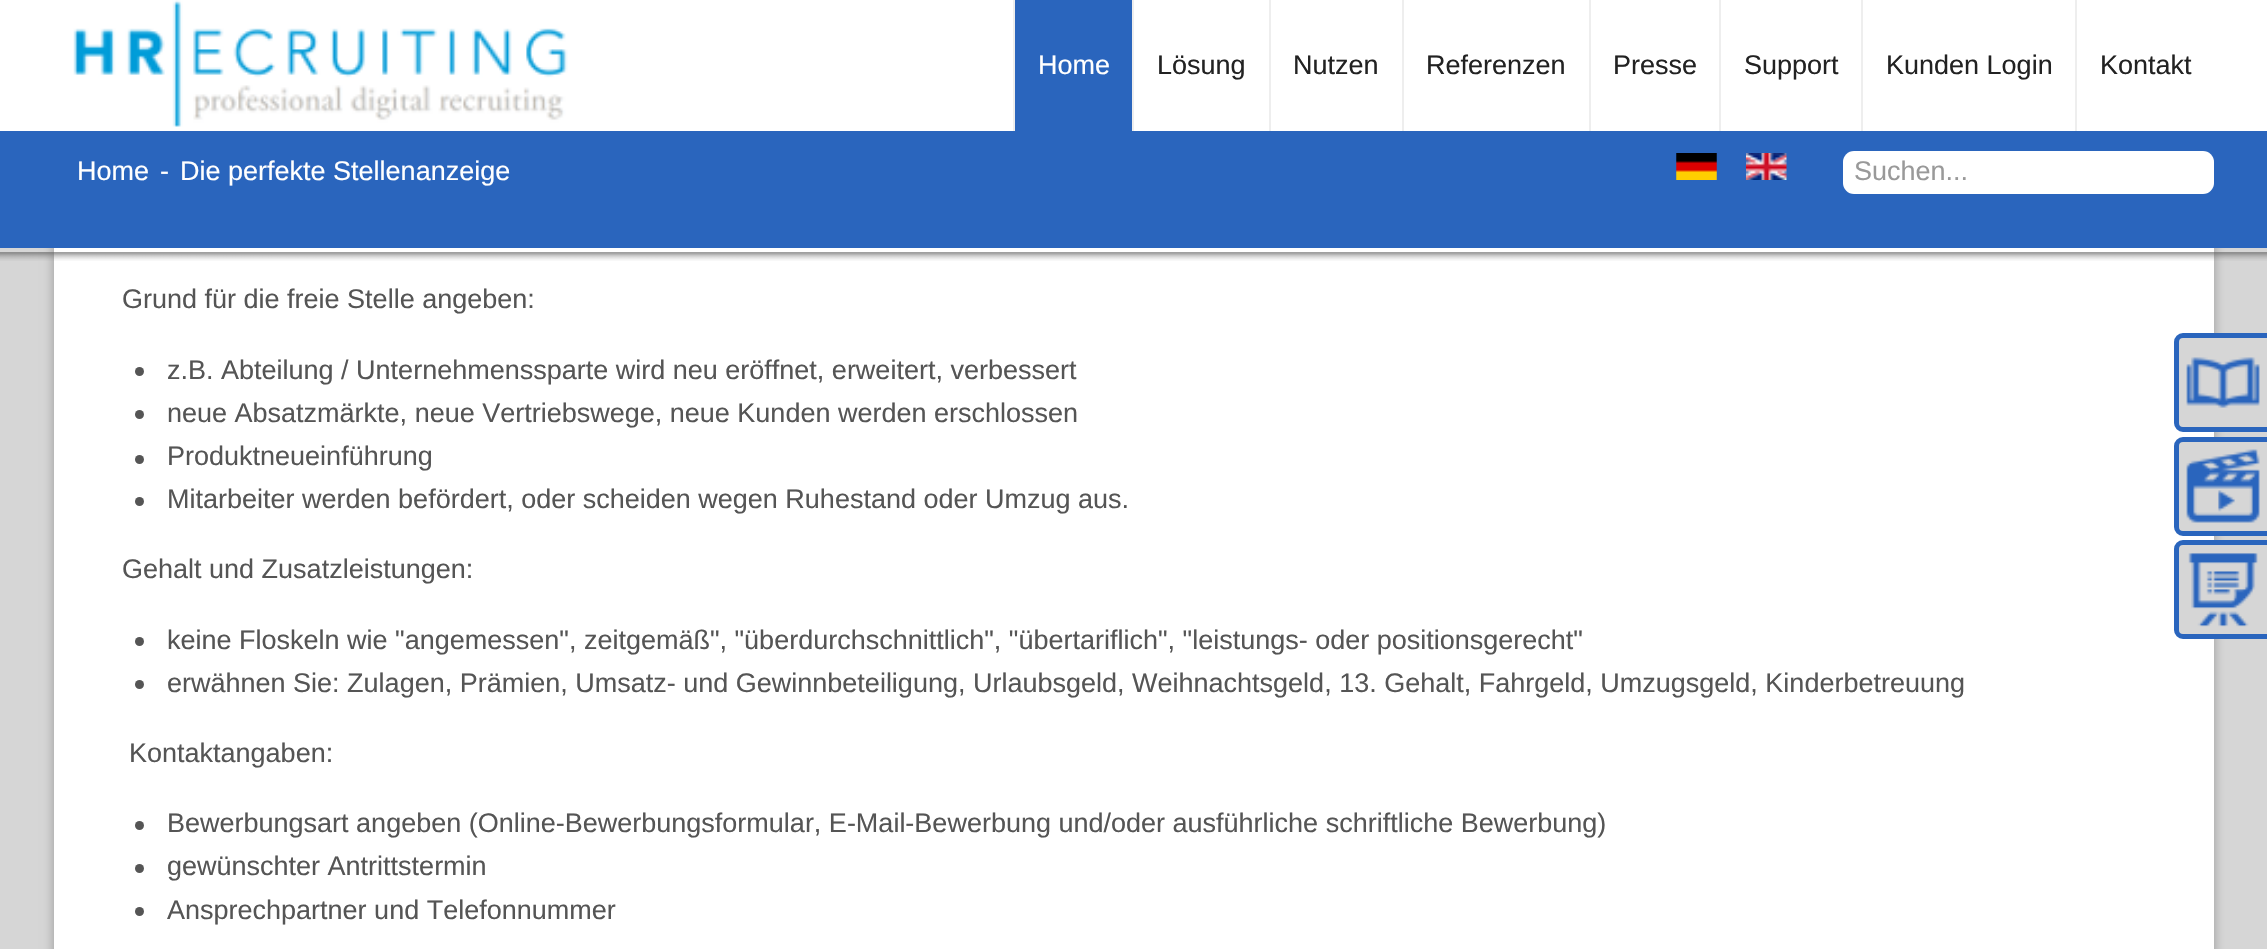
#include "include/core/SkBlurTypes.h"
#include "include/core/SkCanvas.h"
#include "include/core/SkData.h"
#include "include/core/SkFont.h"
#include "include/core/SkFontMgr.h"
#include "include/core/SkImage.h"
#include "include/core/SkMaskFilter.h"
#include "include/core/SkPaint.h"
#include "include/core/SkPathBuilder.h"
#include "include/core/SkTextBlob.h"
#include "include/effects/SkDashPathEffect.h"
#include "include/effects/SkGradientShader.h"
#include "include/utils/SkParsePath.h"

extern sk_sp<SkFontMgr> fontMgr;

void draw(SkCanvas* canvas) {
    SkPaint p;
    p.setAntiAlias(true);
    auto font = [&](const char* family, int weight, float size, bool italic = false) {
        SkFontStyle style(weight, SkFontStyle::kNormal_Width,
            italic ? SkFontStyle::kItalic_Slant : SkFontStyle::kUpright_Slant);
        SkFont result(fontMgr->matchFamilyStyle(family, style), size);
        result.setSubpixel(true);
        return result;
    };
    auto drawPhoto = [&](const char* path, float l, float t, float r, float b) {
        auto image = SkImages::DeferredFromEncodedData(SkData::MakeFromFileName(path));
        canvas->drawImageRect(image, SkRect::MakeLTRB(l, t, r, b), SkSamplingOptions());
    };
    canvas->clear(0xFFD6D6D6);
    p.setColor(0xFF999999);
    p.setMaskFilter(SkMaskFilter::MakeBlur(kNormal_SkBlurStyle, 5.5f));
    canvas->drawRect(SkRect::MakeLTRB(54, -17, 2214, 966), p);
    p.setMaskFilter(nullptr);
    p.setColor(0xFFFFFFFF);
    canvas->drawRect(SkRect::MakeLTRB(0, 0, 2267, 131), p);
    drawPhoto("media/1.png", 73, 0, 568, 127);
    p.setColor(0xFF2A65BD);
    canvas->drawRect(SkRect::MakeLTRB(1015, 0, 1132, 131), p);
    p.setColor(0xFFEEEEEE);
    canvas->drawRect(SkRect::MakeLTRB(1013, 0, 1015, 131), p);
    auto font1 = font("Liberation Sans", 400, 27);
    p.setColor(0xFFFFFFFF);
    canvas->drawString("Home", 1038, 74, font1, p);
    p.setColor(0xFFEEEEEE);
    canvas->drawRect(SkRect::MakeLTRB(1132, 0, 1134, 131), p);
    p.setColor(0xFF222222);
    canvas->drawString("Lösung", 1157, 74, font1, p);
    p.setColor(0xFFEEEEEE);
    canvas->drawRect(SkRect::MakeLTRB(1269, 0, 1271, 131), p);
    p.setColor(0xFF222222);
    canvas->drawString("Nutzen", 1293, 74, font1, p);
    p.setColor(0xFFEEEEEE);
    canvas->drawRect(SkRect::MakeLTRB(1402, 0, 1404, 131), p);
    p.setColor(0xFF222222);
    canvas->drawString("Referenzen", 1426, 74, font1, p);
    p.setColor(0xFFEEEEEE);
    canvas->drawRect(SkRect::MakeLTRB(1589, 0, 1591, 131), p);
    p.setColor(0xFF222222);
    canvas->drawString("Presse", 1613, 74, font1, p);
    p.setColor(0xFFEEEEEE);
    canvas->drawRect(SkRect::MakeLTRB(1719, 0, 1721, 131), p);
    p.setColor(0xFF222222);
    canvas->drawString("Support", 1744, 74, font1, p);
    p.setColor(0xFFEEEEEE);
    canvas->drawRect(SkRect::MakeLTRB(1861, 0, 1863, 131), p);
    p.setColor(0xFF222222);
    canvas->drawString("Kunden Login", 1886, 74, font1, p);
    p.setColor(0xFFEEEEEE);
    canvas->drawRect(SkRect::MakeLTRB(2075, 0, 2077, 131), p);
    p.setColor(0xFF222222);
    canvas->drawString("Kontakt", 2100, 74, font1, p);
    p.setColor(0xFF2A65BD);
    canvas->drawRect(SkRect::MakeLTRB(0, 131, 2267, 248), p);
    p.setColor(0xFFFFFFFF);
    {
        const struct { const char* s; float x, y; } items[] = {
            {"Home", 77, 180},
            {"-", 160, 180},
            {"Die perfekte Stellenanzeige", 180, 180},
        };
        for (auto [s, x, y] : items) {
            canvas->drawString(s, x, y, font1, p);
        }
    }
    drawPhoto("media/2.png", 1676, 153, 1717, 180);
    drawPhoto("media/3.png", 1746, 153, 1787, 180);
    canvas->drawRoundRect(SkRect::MakeLTRB(1843, 151, 2214, 194), 11, 11, p);
    p.setColor(0xFF999999);
    canvas->drawString("Suchen...", 1854, 180, font1, p);
    p.setColor(0xFFFFFFFF);
    canvas->drawRect(SkRect::MakeLTRB(54, 248, 2214, 949), p);
    drawPhoto("media/4.png", 0, 252, 2267, 261);
    p.setColor(0xFF555555);
    canvas->drawString("Grund für die freie Stelle angeben:", 122, 308, font1, p);
    canvas->drawCircle(139.5f, 371.5f, 4.5f, p);
    canvas->drawString("z.B. Abteilung / Unternehmenssparte wird neu eröffnet, erweitert, verbessert", 167, 379, font1, p);
    canvas->drawCircle(139.5f, 414.5f, 4.5f, p);
    canvas->drawString("neue Absatzmärkte, neue Vertriebswege, neue Kunden werden erschlossen", 167, 422, font1, p);
    canvas->drawCircle(139.5f, 459.5f, 4.5f, p);
    canvas->drawString("Produktneueinführung", 167, 465, font1, p);
    canvas->drawCircle(139.5f, 501.5f, 4.5f, p);
    canvas->drawString("Mitarbeiter werden befördert, oder scheiden wegen Ruhestand oder Umzug aus.", 167, 508, font1, p);
    canvas->drawString("Gehalt und Zusatzleistungen:", 122, 578, font1, p);
    canvas->drawCircle(139.5f, 641.5f, 4.5f, p);
    canvas->drawString("keine Floskeln wie \"angemessen\", zeitgemäß\", \"überdurchschnittlich\", \"übertariflich\", \"leistungs- oder positionsgerecht\"", 167, 649, font1, p);
    canvas->drawCircle(139.5f, 684.5f, 4.5f, p);
    canvas->drawString("erwähnen Sie: Zulagen, Prämien, Umsatz- und Gewinnbeteiligung, Urlaubsgeld, Weihnachtsgeld, 13. Gehalt, Fahrgeld, Umzugsgeld, Kinderbetreuung", 167, 692, font1, p);
    canvas->drawString("Kontaktangaben:", 129, 762, font1, p);
    canvas->drawCircle(139.5f, 825.5f, 4.5f, p);
    canvas->drawString("Bewerbungsart angeben (Online-Bewerbungsformular, E-Mail-Bewerbung und/oder ausführliche schriftliche Bewerbung)", 167, 832, font1, p);
    canvas->drawCircle(139.5f, 868.5f, 4.5f, p);
    canvas->drawString("gewünschter Antrittstermin", 167, 875, font1, p);
    canvas->drawCircle(139.5f, 911.5f, 4.5f, p);
    canvas->drawString("Ansprechpartner und Telefonnummer", 167, 919, font1, p);
    p.setColor(0xFFD6D6D6);
    canvas->drawRoundRect(SkRect::MakeLTRB(2176.5f, 335.5f, 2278.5f, 429.5f), 6.5f, 6.5f, p);
    p.setStyle(SkPaint::kStroke_Style);
    p.setStrokeWidth(5);
    p.setColor(0xFF2A65BD);
    canvas->drawRoundRect(SkRect::MakeLTRB(2176.5f, 335.5f, 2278.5f, 429.5f), 6.5f, 6.5f, p);
    drawPhoto("media/5.png", 2186, 357, 2260, 408);
    p.setStyle(SkPaint::kFill_Style);
    p.setColor(0xFFD6D6D6);
    canvas->drawRoundRect(SkRect::MakeLTRB(2176.5f, 439.5f, 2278.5f, 533.5f), 6.5f, 6.5f, p);
    p.setStyle(SkPaint::kStroke_Style);
    p.setColor(0xFF2A65BD);
    canvas->drawRoundRect(SkRect::MakeLTRB(2176.5f, 439.5f, 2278.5f, 533.5f), 6.5f, 6.5f, p);
    drawPhoto("media/6.png", 2186, 449, 2260, 523);
    p.setStyle(SkPaint::kFill_Style);
    p.setColor(0xFFD6D6D6);
    canvas->drawRoundRect(SkRect::MakeLTRB(2176.5f, 542.5f, 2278.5f, 636.5f), 6.5f, 6.5f, p);
    p.setStyle(SkPaint::kStroke_Style);
    p.setColor(0xFF2A65BD);
    canvas->drawRoundRect(SkRect::MakeLTRB(2176.5f, 542.5f, 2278.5f, 636.5f), 6.5f, 6.5f, p);
    drawPhoto("media/7.png", 2188, 553, 2258, 627);
}
